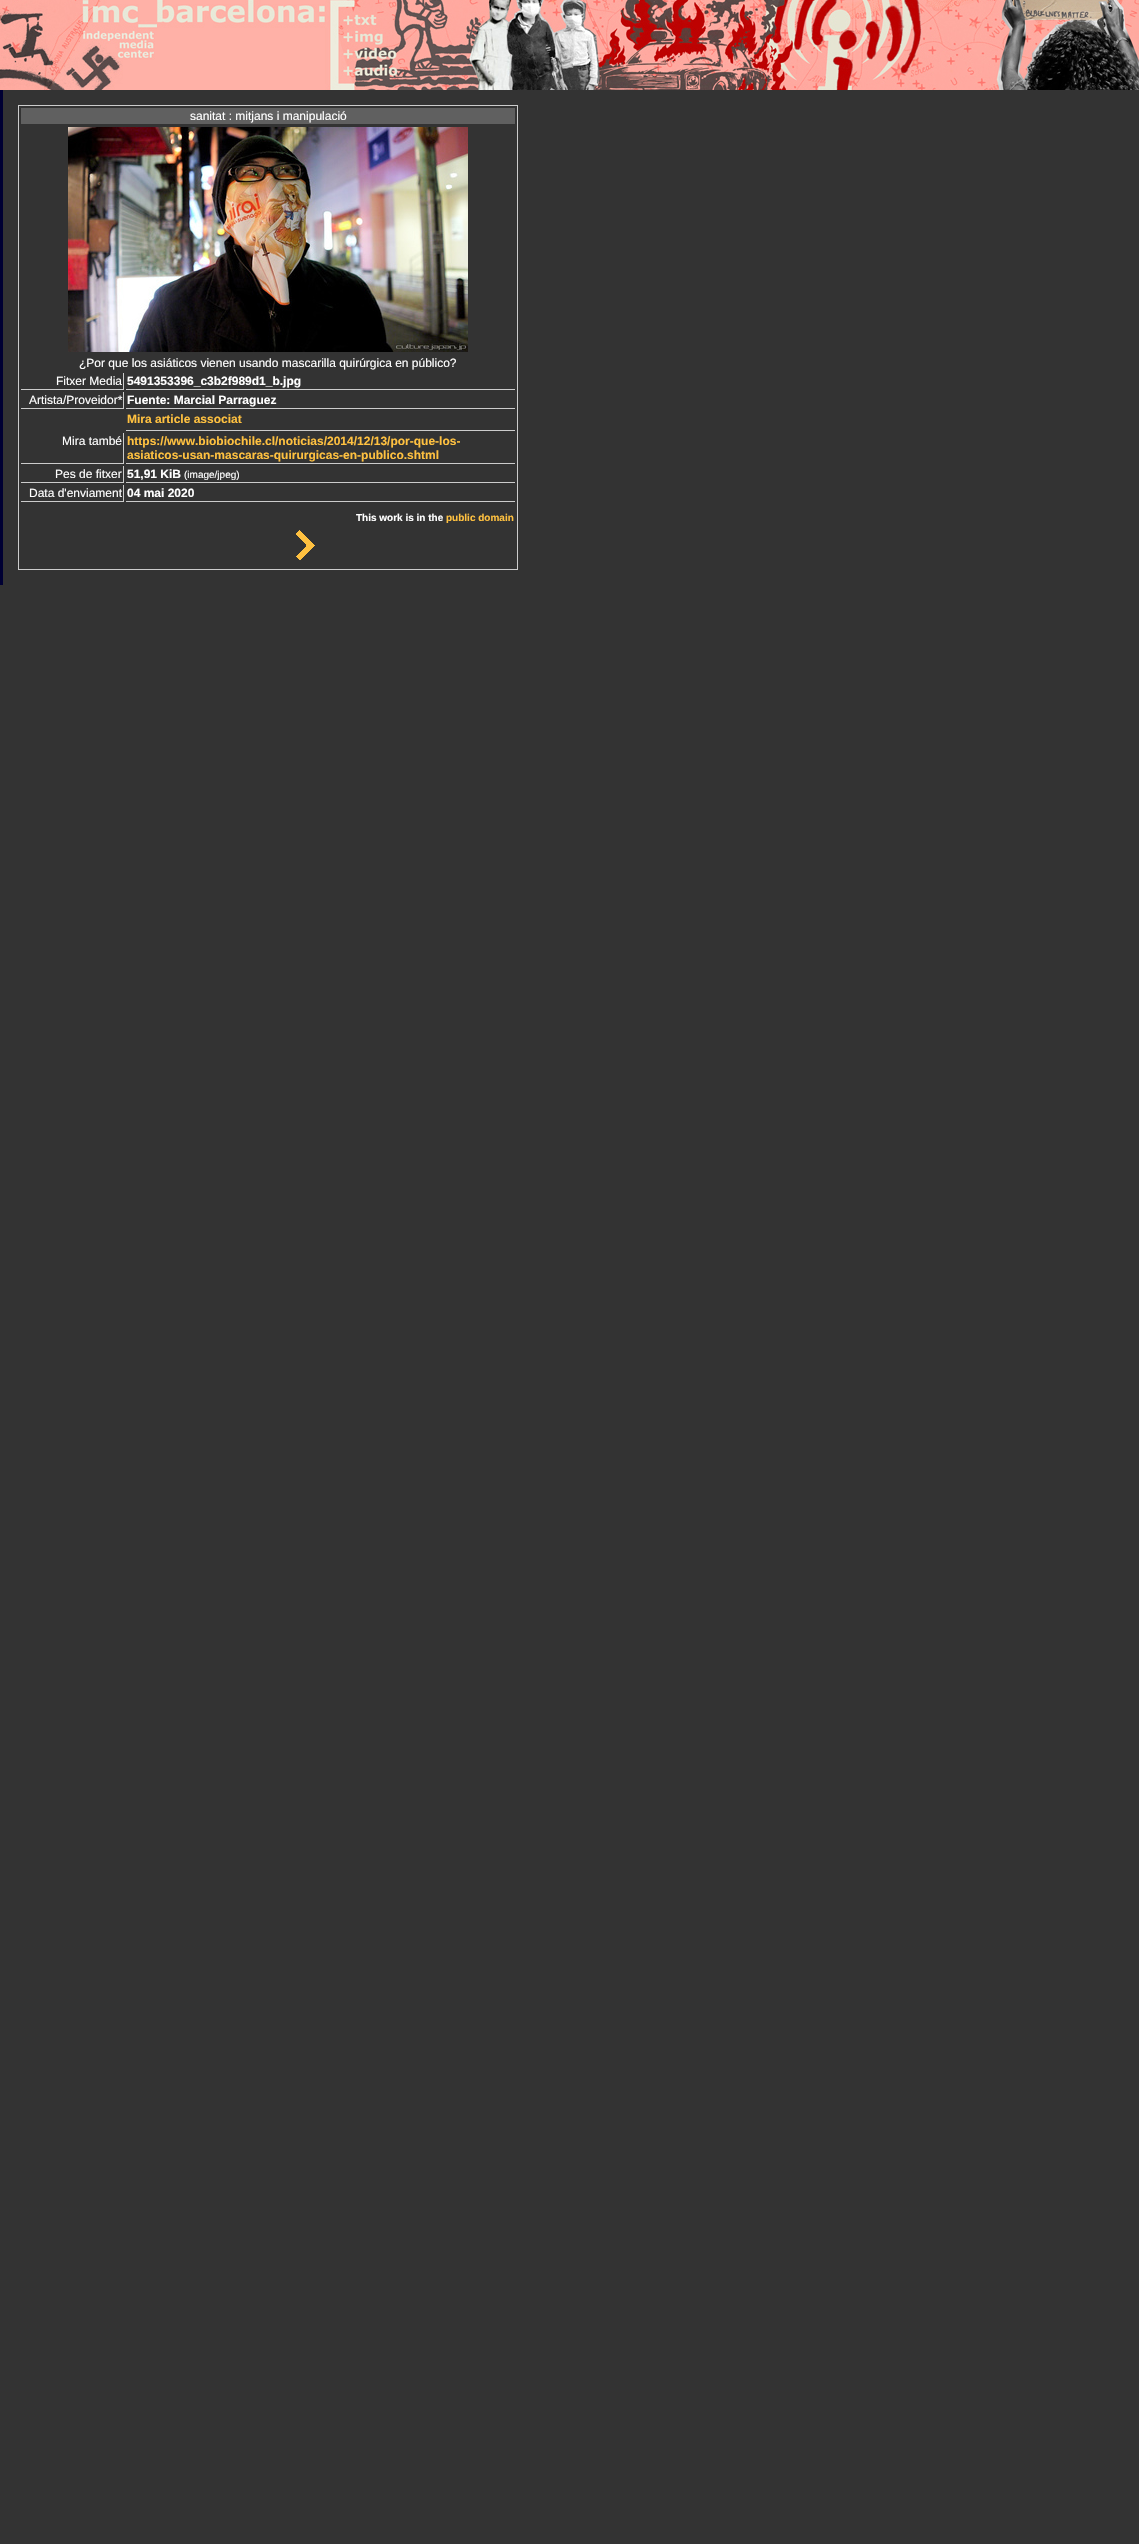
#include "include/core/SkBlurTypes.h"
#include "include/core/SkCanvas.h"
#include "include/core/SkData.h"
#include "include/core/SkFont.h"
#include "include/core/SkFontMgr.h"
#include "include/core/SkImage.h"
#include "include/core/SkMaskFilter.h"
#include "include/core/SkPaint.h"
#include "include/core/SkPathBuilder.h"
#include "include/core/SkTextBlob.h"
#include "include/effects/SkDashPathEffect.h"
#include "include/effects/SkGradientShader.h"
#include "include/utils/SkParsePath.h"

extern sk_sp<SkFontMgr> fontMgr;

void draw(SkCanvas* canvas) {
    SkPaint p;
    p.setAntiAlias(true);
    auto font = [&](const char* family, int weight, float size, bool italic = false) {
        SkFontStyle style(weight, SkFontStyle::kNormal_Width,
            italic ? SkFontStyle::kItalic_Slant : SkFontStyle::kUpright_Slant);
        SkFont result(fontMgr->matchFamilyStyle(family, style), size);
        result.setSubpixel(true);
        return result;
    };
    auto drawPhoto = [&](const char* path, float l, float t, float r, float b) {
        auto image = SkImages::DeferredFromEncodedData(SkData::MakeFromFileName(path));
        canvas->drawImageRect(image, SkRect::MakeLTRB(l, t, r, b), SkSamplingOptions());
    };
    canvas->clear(0xFF333333);
    drawPhoto("media/1.png", 0, 0, 157, 90);
    drawPhoto("media/2.png", 157, 0, 1139, 90);
    p.setColor(0xFF000033);
    canvas->drawRect(SkRect::MakeLTRB(0, 90, 3, 585), p);
    p.setStyle(SkPaint::kStroke_Style);
    p.setStrokeWidth(1);
    p.setColor(0xFFCCCCCC);
    canvas->drawRect(SkRect::MakeLTRB(18.5f, 105.5f, 517.5f, 569.5f), p);
    p.setStyle(SkPaint::kFill_Style);
    p.setColor(0xFF606060);
    canvas->drawRect(SkRect::MakeLTRB(21, 108, 515, 124), p);
    auto font1 = font("Liberation Sans", 400, 12);
    p.setColor(0xFFFFFFFF);
    canvas->drawString("sanitat : mitjans i manipulació", 190, 120, font1, p);
    drawPhoto("media/3.png", 68, 127, 468, 352);
    canvas->drawString("¿Por que los asiáticos vienen usando mascarilla quirúrgica en público?", 79, 367, font1, p);
    p.setColor(0xFFCCCCCC);
    canvas->drawRect(SkRect::MakeLTRB(123, 373, 124, 390), p);
    canvas->drawRect(SkRect::MakeLTRB(21, 389, 124, 390), p);
    p.setColor(0xFFFFFFFF);
    canvas->drawString("Fitxer Media", 56, 385, font1, p);
    p.setColor(0xFFCCCCCC);
    canvas->drawRect(SkRect::MakeLTRB(126, 389, 515, 390), p);
    auto font2 = font("Liberation Sans", 700, 12);
    p.setColor(0xFFFFFFFF);
    canvas->drawString("5491353396_c3b2f989d1_b.jpg", 127, 385, font2, p);
    p.setColor(0xFFCCCCCC);
    canvas->drawRect(SkRect::MakeLTRB(123, 392, 124, 409), p);
    canvas->drawRect(SkRect::MakeLTRB(21, 408, 124, 409), p);
    p.setColor(0xFFFFFFFF);
    canvas->drawString("Artista/Proveidor*", 29, 404, font1, p);
    p.setColor(0xFFCCCCCC);
    canvas->drawRect(SkRect::MakeLTRB(126, 408, 515, 409), p);
    p.setColor(0xFFFFFFFF);
    canvas->drawString("Fuente: Marcial Parraguez", 127, 404, font2, p);
    p.setColor(0xFFCCCCCC);
    canvas->drawRect(SkRect::MakeLTRB(126, 430, 515, 431), p);
    p.setColor(0xFFFFC140);
    canvas->drawString("Mira article associat", 127, 423, font2, p);
    p.setColor(0xFFCCCCCC);
    canvas->drawRect(SkRect::MakeLTRB(123, 433, 124, 464), p);
    canvas->drawRect(SkRect::MakeLTRB(21, 463, 124, 464), p);
    p.setColor(0xFFFFFFFF);
    canvas->drawString("Mira també", 62, 445, font1, p);
    p.setColor(0xFFCCCCCC);
    canvas->drawRect(SkRect::MakeLTRB(126, 463, 515, 464), p);
    p.setColor(0xFFFFC140);
    canvas->drawString("https://www.biobiochile.cl/noticias/2014/12/13/por-que-los-", 127, 445, font2, p);
    canvas->drawString("asiaticos-usan-mascaras-quirurgicas-en-publico.shtml", 127, 459, font2, p);
    p.setColor(0xFFCCCCCC);
    canvas->drawRect(SkRect::MakeLTRB(123, 466, 124, 483), p);
    canvas->drawRect(SkRect::MakeLTRB(21, 482, 124, 483), p);
    p.setColor(0xFFFFFFFF);
    canvas->drawString("Pes de fitxer", 55, 478, font1, p);
    p.setColor(0xFFCCCCCC);
    canvas->drawRect(SkRect::MakeLTRB(126, 482, 515, 483), p);
    p.setColor(0xFFFFFFFF);
    canvas->drawString("51,91 KiB", 127, 478, font2, p);
    auto font3 = font("Liberation Sans", 400, 10);
    canvas->drawString("(image/jpeg)", 184, 478, font3, p);
    p.setColor(0xFFCCCCCC);
    canvas->drawRect(SkRect::MakeLTRB(123, 485, 124, 502), p);
    canvas->drawRect(SkRect::MakeLTRB(21, 501, 124, 502), p);
    p.setColor(0xFFFFFFFF);
    canvas->drawString("Data d'enviament", 29, 497, font1, p);
    p.setColor(0xFFCCCCCC);
    canvas->drawRect(SkRect::MakeLTRB(126, 501, 515, 502), p);
    p.setColor(0xFFFFFFFF);
    canvas->drawString("04 mai 2020", 127, 497, font2, p);
    auto font4 = font("Liberation Sans", 700, 10);
    canvas->drawString("This work is in the", 356, 521, font4, p);
    p.setColor(0xFFFFC140);
    canvas->drawString("public domain", 446, 521, font4, p);
    drawPhoto("media/4.png", 296, 530, 315, 560);
}
